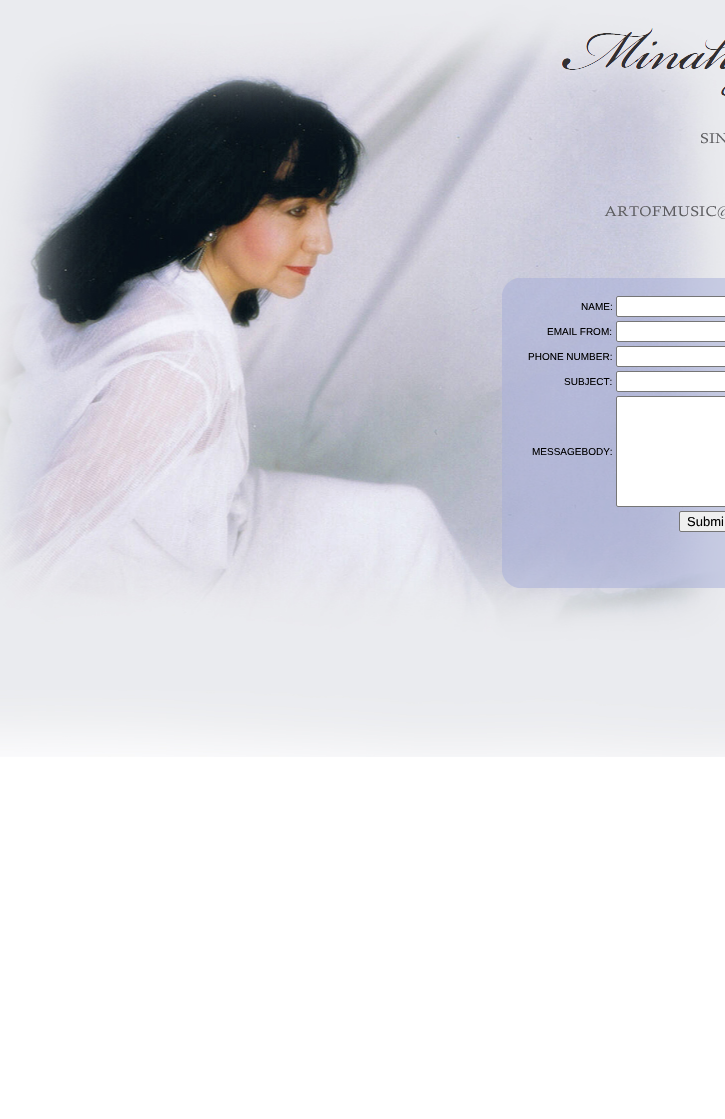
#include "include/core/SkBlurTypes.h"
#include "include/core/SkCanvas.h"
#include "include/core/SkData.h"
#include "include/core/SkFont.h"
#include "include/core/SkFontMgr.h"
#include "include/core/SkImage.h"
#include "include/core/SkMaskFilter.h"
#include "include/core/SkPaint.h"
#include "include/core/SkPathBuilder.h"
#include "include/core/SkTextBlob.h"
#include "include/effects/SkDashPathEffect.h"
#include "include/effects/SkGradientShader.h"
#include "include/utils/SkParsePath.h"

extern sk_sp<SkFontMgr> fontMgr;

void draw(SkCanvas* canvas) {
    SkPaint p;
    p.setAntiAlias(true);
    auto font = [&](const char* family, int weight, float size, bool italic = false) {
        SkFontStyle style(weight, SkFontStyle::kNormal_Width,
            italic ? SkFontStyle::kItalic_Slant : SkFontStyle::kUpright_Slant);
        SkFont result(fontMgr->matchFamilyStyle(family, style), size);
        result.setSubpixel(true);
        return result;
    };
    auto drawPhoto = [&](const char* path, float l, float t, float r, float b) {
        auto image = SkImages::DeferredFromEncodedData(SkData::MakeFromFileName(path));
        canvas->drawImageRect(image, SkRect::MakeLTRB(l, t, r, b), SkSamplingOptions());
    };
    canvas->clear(0xFFFFFFFF);
    drawPhoto("media/1.png", 0, 0, 725, 757);
    drawPhoto("media/2.png", 561, 28, 725, 219);
    drawPhoto("media/3.png", 502, 278, 725, 588);
    auto font1 = font("Liberation Sans", 400, 10);
    p.setColor(0xFF000000);
    canvas->drawString("NAME:", 581, 310, font1, p);
    p.setColor(0xFFFFFFFF);
    canvas->drawRoundRect(SkRect::MakeLTRB(616.5f, 296.5f, 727.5f, 316.5f), 1.5f, 1.5f, p);
    p.setStyle(SkPaint::kStroke_Style);
    p.setStrokeWidth(1);
    p.setColor(0xFF767676);
    canvas->drawRoundRect(SkRect::MakeLTRB(616.5f, 296.5f, 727.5f, 316.5f), 1.5f, 1.5f, p);
    p.setStyle(SkPaint::kFill_Style);
    p.setColor(0xFF000000);
    canvas->drawString("EMAIL FROM:", 547, 335, font1, p);
    p.setColor(0xFFFFFFFF);
    canvas->drawRoundRect(SkRect::MakeLTRB(616.5f, 321.5f, 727.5f, 341.5f), 1.5f, 1.5f, p);
    p.setStyle(SkPaint::kStroke_Style);
    p.setColor(0xFF767676);
    canvas->drawRoundRect(SkRect::MakeLTRB(616.5f, 321.5f, 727.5f, 341.5f), 1.5f, 1.5f, p);
    p.setStyle(SkPaint::kFill_Style);
    p.setColor(0xFF000000);
    canvas->drawString("PHONE NUMBER:", 528, 360, font1, p);
    p.setColor(0xFFFFFFFF);
    canvas->drawRoundRect(SkRect::MakeLTRB(616.5f, 346.5f, 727.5f, 366.5f), 1.5f, 1.5f, p);
    p.setStyle(SkPaint::kStroke_Style);
    p.setColor(0xFF767676);
    canvas->drawRoundRect(SkRect::MakeLTRB(616.5f, 346.5f, 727.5f, 366.5f), 1.5f, 1.5f, p);
    p.setStyle(SkPaint::kFill_Style);
    p.setColor(0xFF000000);
    canvas->drawString("SUBJECT:", 564, 385, font1, p);
    p.setColor(0xFFFFFFFF);
    canvas->drawRoundRect(SkRect::MakeLTRB(616.5f, 371.5f, 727.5f, 391.5f), 1.5f, 1.5f, p);
    p.setStyle(SkPaint::kStroke_Style);
    p.setColor(0xFF767676);
    canvas->drawRoundRect(SkRect::MakeLTRB(616.5f, 371.5f, 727.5f, 391.5f), 1.5f, 1.5f, p);
    p.setStyle(SkPaint::kFill_Style);
    p.setColor(0xFF000000);
    canvas->drawString("MESSAGEBODY:", 532, 455, font1, p);
    p.setColor(0xFFFFFFFF);
    canvas->drawRoundRect(SkRect::MakeLTRB(616.5f, 396.5f, 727.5f, 506.5f), 1.5f, 1.5f, p);
    p.setStyle(SkPaint::kStroke_Style);
    p.setColor(0xFF767676);
    canvas->drawRoundRect(SkRect::MakeLTRB(616.5f, 396.5f, 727.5f, 506.5f), 1.5f, 1.5f, p);
    p.setStyle(SkPaint::kFill_Style);
    p.setColor(0xFFEFEFEF);
    canvas->drawRoundRect(SkRect::MakeLTRB(679.5f, 511.5f, 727.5f, 531.5f), 1.5f, 1.5f, p);
    p.setStyle(SkPaint::kStroke_Style);
    p.setColor(0xFF767676);
    canvas->drawRoundRect(SkRect::MakeLTRB(679.5f, 511.5f, 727.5f, 531.5f), 1.5f, 1.5f, p);
    auto font2 = font("Liberation Sans", 400, 13);
    p.setStyle(SkPaint::kFill_Style);
    p.setColor(0xFF000000);
    canvas->drawString("Submi", 687, 526, font2, p);
}
